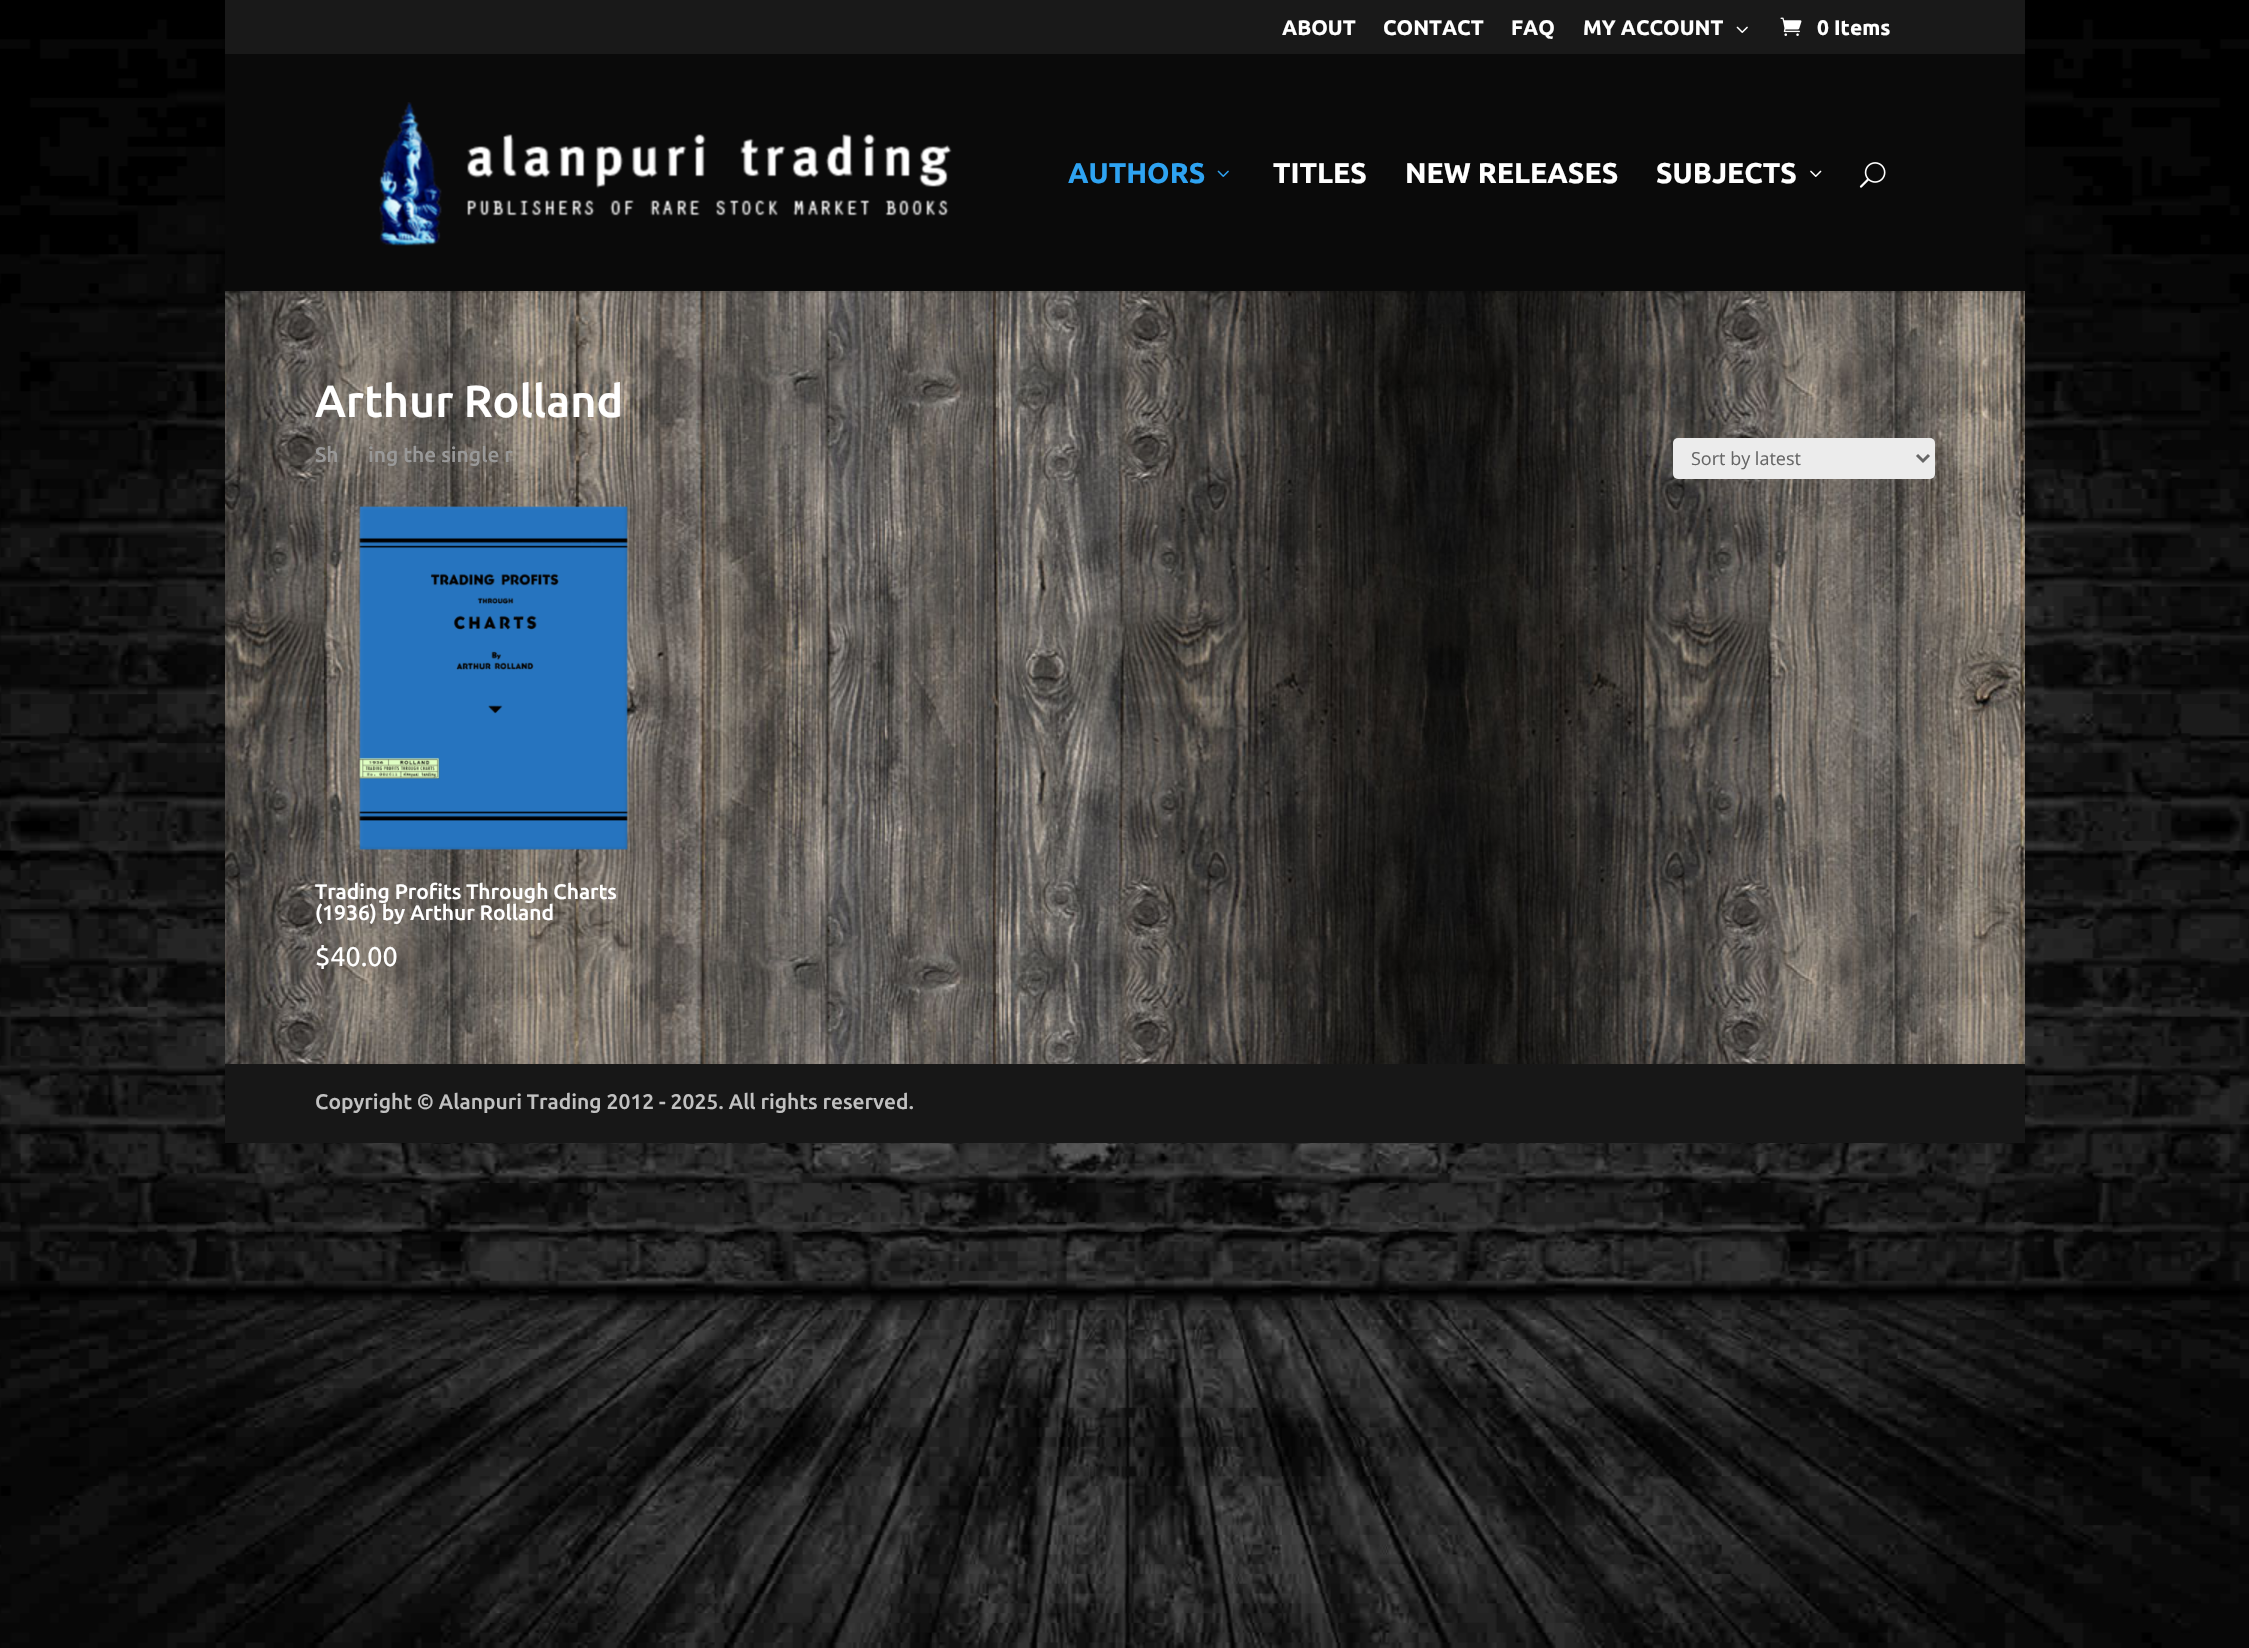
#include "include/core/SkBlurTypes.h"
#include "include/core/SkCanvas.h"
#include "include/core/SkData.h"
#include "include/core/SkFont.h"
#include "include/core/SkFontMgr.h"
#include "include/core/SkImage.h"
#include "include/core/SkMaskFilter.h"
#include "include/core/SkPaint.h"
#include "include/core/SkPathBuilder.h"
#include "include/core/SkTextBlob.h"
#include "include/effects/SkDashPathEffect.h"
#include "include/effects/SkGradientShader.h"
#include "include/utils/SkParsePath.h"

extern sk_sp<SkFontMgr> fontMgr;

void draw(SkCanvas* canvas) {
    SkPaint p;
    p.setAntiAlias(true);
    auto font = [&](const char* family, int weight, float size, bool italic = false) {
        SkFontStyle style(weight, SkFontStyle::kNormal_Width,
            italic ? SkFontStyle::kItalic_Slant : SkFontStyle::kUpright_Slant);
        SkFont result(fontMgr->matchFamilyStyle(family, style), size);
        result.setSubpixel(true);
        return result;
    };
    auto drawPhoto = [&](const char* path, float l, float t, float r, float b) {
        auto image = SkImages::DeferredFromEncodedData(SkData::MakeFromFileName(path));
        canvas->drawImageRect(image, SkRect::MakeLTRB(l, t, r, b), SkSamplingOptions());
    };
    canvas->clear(0xFFFFFFFF);
    drawPhoto("media/1.png", 0, 0, 2249, 1648);
    p.setColor(0x33000000);
    p.setMaskFilter(SkMaskFilter::MakeBlur(kNormal_SkBlurStyle, 7.5f));
    canvas->drawRect(SkRect::MakeLTRB(225, 0, 2025, 1143), p);
    p.setMaskFilter(nullptr);
    p.setColor(0xFF191919);
    canvas->drawRect(SkRect::MakeLTRB(225, 0, 2025, 54), p);
    auto font1 = font("Ubuntu", 700, 21);
    p.setColor(0xFFFFFFFF);
    {
        const struct { const char* s; float x, y; } items[] = {
            {"ABOUT", 1282, 35},
            {"CONTACT", 1383, 35},
            {"FAQ", 1511, 35},
            {"MY ACCOUNT", 1583, 35},
        };
        for (auto [s, x, y] : items) {
            canvas->drawString(s, x, y, font1, p);
        }
    }
    drawPhoto("media/2.png", 1736, 26, 1748, 33);
    drawPhoto("media/3.png", 1780, 17, 1802, 36);
    canvas->drawString("0 Items", 1817, 35, font1, p);
    drawPhoto("media/8.png", 225, 291, 2025, 1064);
    p.setColor(0x1A000000);
    canvas->drawRect(SkRect::MakeLTRB(225, 291, 2025, 293), p);
    p.setColor(0xFF0A0A0A);
    canvas->drawRect(SkRect::MakeLTRB(225, 54, 2025, 291), p);
    drawPhoto("media/4.png", 379, 102, 952, 246);
    auto font2 = font("Ubuntu", 700, 28.5f);
    p.setColor(0xFF2EA3F2);
    canvas->drawString("AUTHORS", 1068, 183, font2, p);
    drawPhoto("media/5.png", 1217, 170, 1229, 177);
    p.setColor(0xFFFFFFFF);
    {
        const struct { const char* s; float x, y; } items[] = {
            {"TITLES", 1273, 183},
            {"NEW RELEASES", 1405, 183},
            {"SUBJECTS", 1656, 183},
        };
        for (auto [s, x, y] : items) {
            canvas->drawString(s, x, y, font2, p);
        }
    }
    drawPhoto("media/6.png", 1810, 170, 1822, 177);
    drawPhoto("media/7.png", 1859, 162, 1886, 188);
    auto font3 = font("Ubuntu", 500, 45);
    canvas->drawString("Arthur Rolland", 315, 417, font3, p);
    auto font4 = font("Ubuntu", 500, 21);
    p.setColor(0xFF999999);
    canvas->drawString("Sh", 315, 462, font4, p);
    canvas->drawString("ing the single r", 368, 462, font4, p);
    p.setColor(0xFFECECEC);
    canvas->drawRoundRect(SkRect::MakeLTRB(1673, 438, 1935, 479), 5, 5, p);
    p.setStyle(SkPaint::kStroke_Style);
    p.setStrokeWidth(3);
    p.setColor(0xFF666666);
    canvas->drawPath(SkPathBuilder().moveTo(1917, 455).lineTo(1923, 461).lineTo(1929, 455).detach(), p);
    auto font5 = font("Open Sans", 400, 18);
    p.setStyle(SkPaint::kFill_Style);
    canvas->drawString("Sort by latest", 1691, 465, font5, p);
    drawPhoto("media/9.png", 359, 506, 628, 850);
    p.setColor(0xFFFFFFFF);
    canvas->drawString("Trading Profits Through Charts", 315, 899, font4, p);
    canvas->drawString("(1936) by Arthur Rolland", 315, 920, font4, p);
    auto font6 = font("Ubuntu", 400, 27);
    canvas->drawString("$40.00", 315, 966, font6, p);
    p.setColor(0xFF171717);
    canvas->drawRect(SkRect::MakeLTRB(225, 1064, 2025, 1143), p);
    p.setColor(0xFFC1C1C1);
    canvas->drawString("Copyright © Alanpuri Trading 2012 - 2025. All rights reserved.", 315, 1109, font4, p);
}
